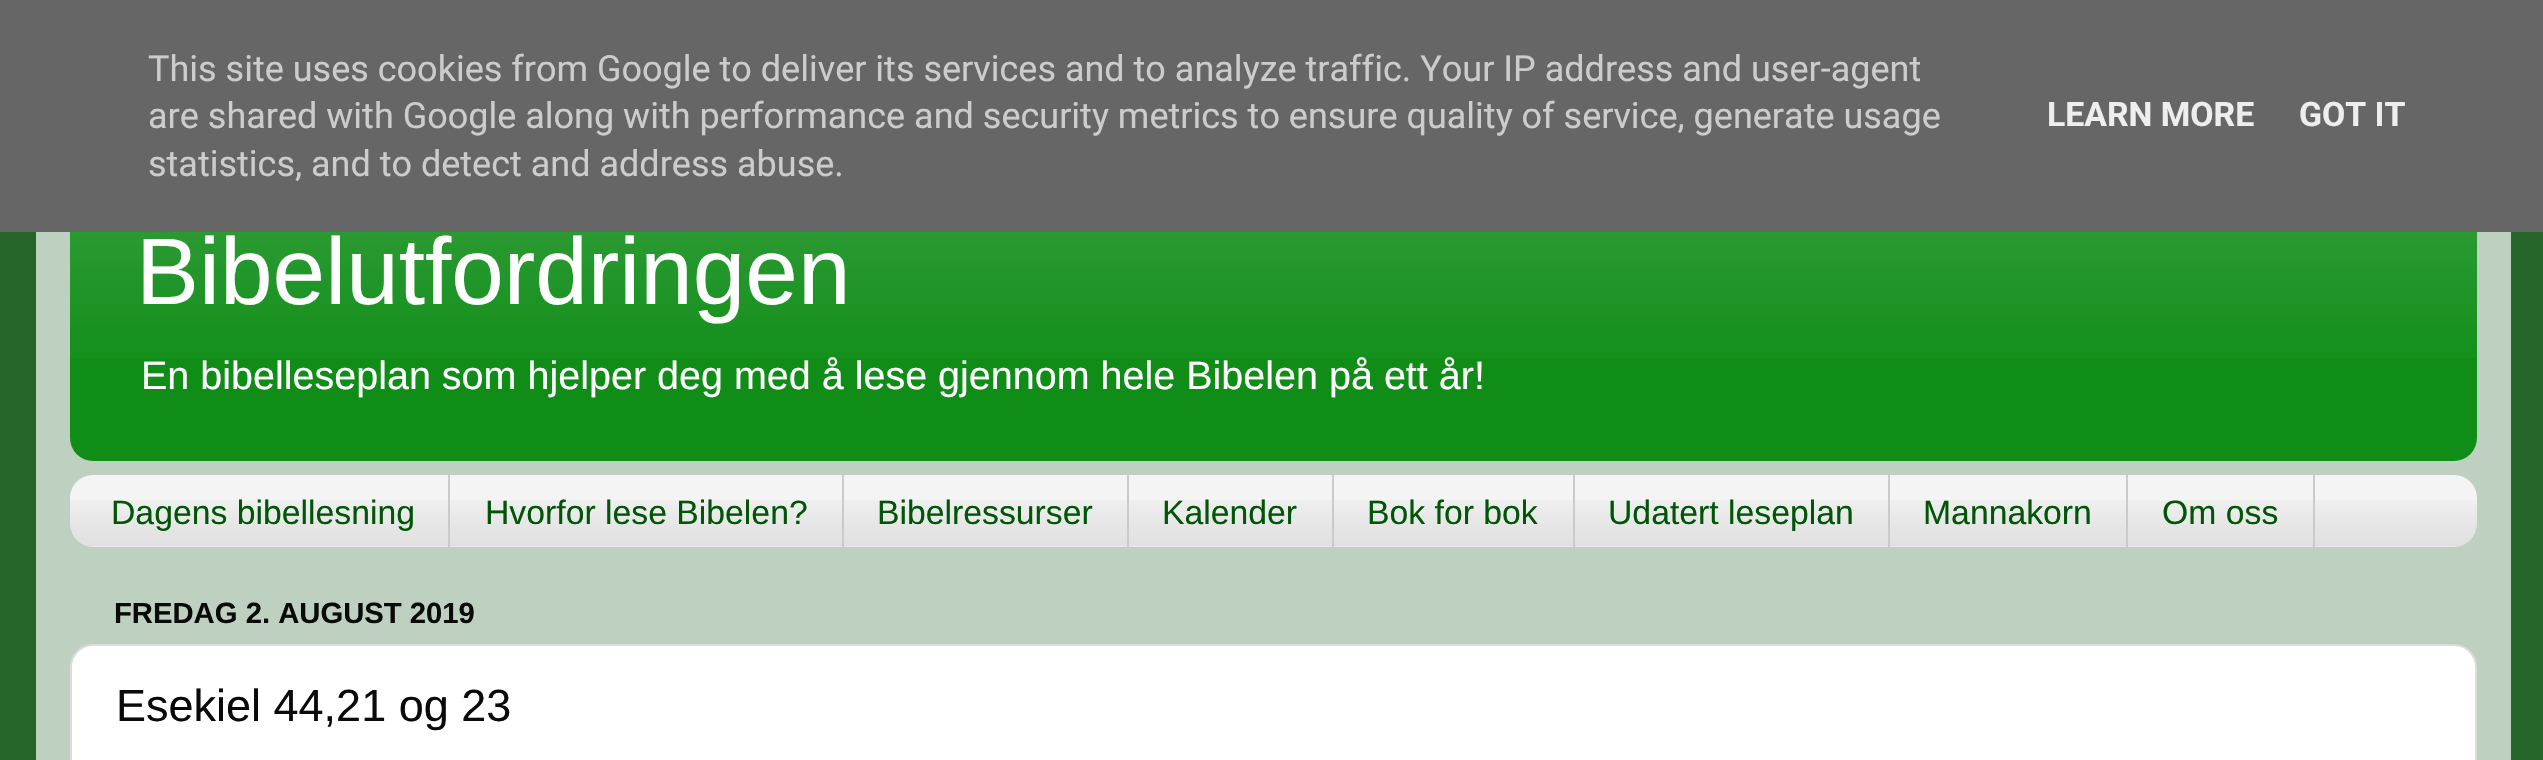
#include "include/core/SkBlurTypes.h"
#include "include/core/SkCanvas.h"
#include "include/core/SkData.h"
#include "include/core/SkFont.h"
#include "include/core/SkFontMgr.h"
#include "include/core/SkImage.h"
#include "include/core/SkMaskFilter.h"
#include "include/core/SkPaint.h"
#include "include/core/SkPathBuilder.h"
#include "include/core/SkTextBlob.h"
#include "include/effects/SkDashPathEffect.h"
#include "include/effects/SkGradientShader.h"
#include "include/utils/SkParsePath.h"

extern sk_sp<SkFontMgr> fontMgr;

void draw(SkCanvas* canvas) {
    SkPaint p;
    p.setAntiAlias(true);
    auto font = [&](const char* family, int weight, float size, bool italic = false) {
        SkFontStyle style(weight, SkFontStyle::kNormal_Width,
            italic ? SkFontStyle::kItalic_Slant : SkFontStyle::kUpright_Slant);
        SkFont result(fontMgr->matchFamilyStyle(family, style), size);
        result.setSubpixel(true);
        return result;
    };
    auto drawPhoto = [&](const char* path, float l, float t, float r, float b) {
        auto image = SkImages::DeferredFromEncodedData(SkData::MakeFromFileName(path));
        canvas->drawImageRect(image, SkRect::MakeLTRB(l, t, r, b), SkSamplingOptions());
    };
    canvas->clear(0xFF256529);
    drawPhoto("media/1.png", 36, 232, 2511, 760);
    p.setColor(0xFF0F8D17);
    canvas->drawRoundRect(SkRect::MakeLTRB(70, 169, 2477, 461), 23, 23, p);
    p.setColor(0xFF666666);
    canvas->drawRect(SkRect::MakeLTRB(0, 0, 2543, 232), p);
    auto font1 = font("Roboto", 400, 36);
    p.setColor(0xFFCCCCCC);
    {
        const struct { const char* s; float x, y; } items[] = {
            {"This site uses cookies from Google to deliver its services and to analyze traffic. Your IP address and user-agent", 148, 81},
            {"are shared with Google along with performance and security metrics to ensure quality of service, generate usage", 148, 128},
            {"statistics, and to detect and address abuse.", 148, 176},
        };
        for (auto [s, x, y] : items) {
            canvas->drawString(s, x, y, font1, p);
        }
    }
    auto font2 = font("Roboto", 700, 33.75f);
    p.setColor(0xFFEEEEEE);
    canvas->drawString("LEARN MORE", 2047, 126, font2, p);
    canvas->drawString("GOT IT", 2299, 126, font2, p);
    drawPhoto("media/2.png", 70, 232, 2477, 358);
    auto font3 = font("Liberation Sans", 400, 94.5f);
    p.setColor(0xFFFFFFFF);
    canvas->drawString("Bibelutfordringen", 136, 304, font3, p);
    auto font4 = font("Liberation Sans", 400, 39.5f);
    canvas->drawString("En bibelleseplan som hjelper deg med å lese gjennom hele Bibelen på ett år!", 141, 389, font4, p);
    p.setColor(0xFFF4F4F4);
    canvas->drawRoundRect(SkRect::MakeLTRB(70, 475, 2477, 547), 23, 23, p);
    drawPhoto("media/3.png", 70, 500, 2477, 547);
    p.setColor(0xFFCACACA);
    canvas->drawRect(SkRect::MakeLTRB(448, 475, 450, 547), p);
    auto font5 = font("Liberation Sans", 400, 33.75f);
    p.setColor(0xFF005506);
    canvas->drawString("Dagens bibellesning", 111, 524, font5, p);
    p.setColor(0xFFCACACA);
    canvas->drawRect(SkRect::MakeLTRB(842, 475, 844, 547), p);
    p.setColor(0xFF005506);
    canvas->drawString("Hvorfor lese Bibelen?", 485, 524, font5, p);
    p.setColor(0xFFCACACA);
    canvas->drawRect(SkRect::MakeLTRB(1127, 475, 1129, 547), p);
    p.setColor(0xFF005506);
    canvas->drawString("Bibelressurser", 877, 524, font5, p);
    p.setColor(0xFFCACACA);
    canvas->drawRect(SkRect::MakeLTRB(1332, 475, 1334, 547), p);
    p.setColor(0xFF005506);
    canvas->drawString("Kalender", 1162, 524, font5, p);
    p.setColor(0xFFCACACA);
    canvas->drawRect(SkRect::MakeLTRB(1573, 475, 1575, 547), p);
    p.setColor(0xFF005506);
    canvas->drawString("Bok for bok", 1367, 524, font5, p);
    p.setColor(0xFFCACACA);
    canvas->drawRect(SkRect::MakeLTRB(1888, 475, 1890, 547), p);
    p.setColor(0xFF005506);
    canvas->drawString("Udatert leseplan", 1608, 524, font5, p);
    p.setColor(0xFFCACACA);
    canvas->drawRect(SkRect::MakeLTRB(2126, 475, 2128, 547), p);
    p.setColor(0xFF005506);
    canvas->drawString("Mannakorn", 1923, 524, font5, p);
    p.setColor(0xFFCACACA);
    canvas->drawRect(SkRect::MakeLTRB(2313, 475, 2315, 547), p);
    p.setColor(0xFF005506);
    canvas->drawString("Om oss", 2162, 524, font5, p);
    auto font6 = font("Liberation Sans", 700, 29.25f);
    p.setColor(0xFF0A0A0A);
    canvas->drawString("FREDAG 2. AUGUST 2019", 114, 623, font6, p);
    p.setColor(0xFFFFFFFF);
    canvas->drawRoundRect(SkRect::MakeLTRB(71, 645, 2476, 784), 22, 22, p);
    p.setStyle(SkPaint::kStroke_Style);
    p.setStrokeWidth(2);
    p.setColor(0xFFDCDCDC);
    canvas->drawRoundRect(SkRect::MakeLTRB(71, 645, 2476, 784), 22, 22, p);
    auto font7 = font("Liberation Sans", 400, 45);
    p.setStyle(SkPaint::kFill_Style);
    p.setColor(0xFF0A0A0A);
    canvas->drawString("Esekiel 44,21 og 23", 116, 721, font7, p);
}
